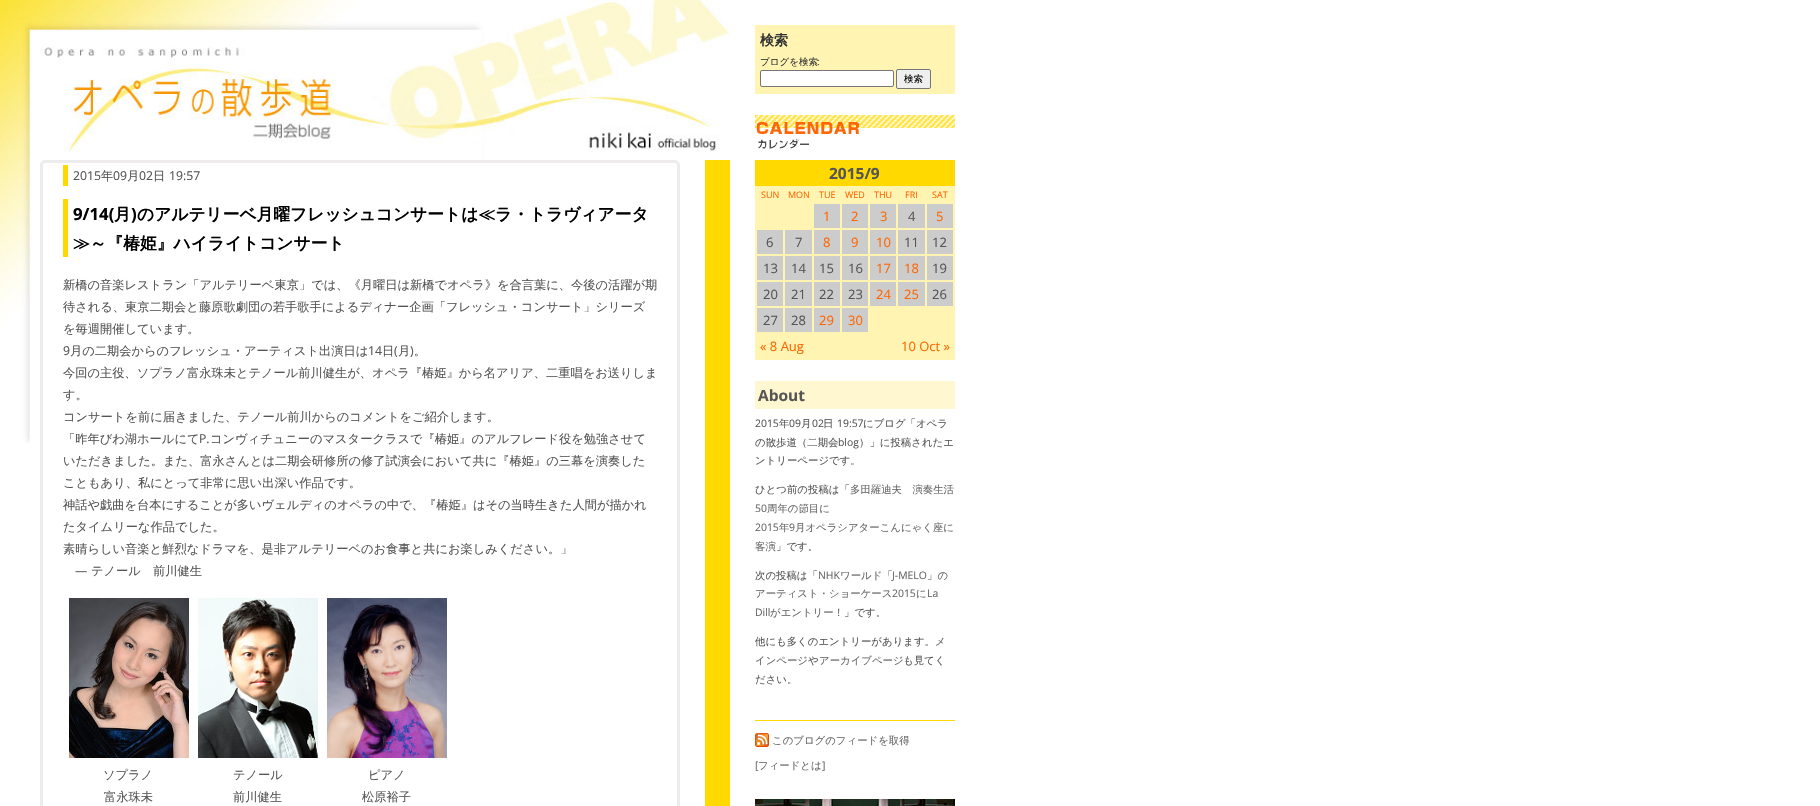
#include "include/core/SkBlurTypes.h"
#include "include/core/SkCanvas.h"
#include "include/core/SkData.h"
#include "include/core/SkFont.h"
#include "include/core/SkFontMgr.h"
#include "include/core/SkImage.h"
#include "include/core/SkMaskFilter.h"
#include "include/core/SkPaint.h"
#include "include/core/SkPathBuilder.h"
#include "include/core/SkTextBlob.h"
#include "include/effects/SkDashPathEffect.h"
#include "include/effects/SkGradientShader.h"
#include "include/utils/SkParsePath.h"

extern sk_sp<SkFontMgr> fontMgr;

void draw(SkCanvas* canvas) {
    SkPaint p;
    p.setAntiAlias(true);
    auto font = [&](const char* family, int weight, float size, bool italic = false) {
        SkFontStyle style(weight, SkFontStyle::kNormal_Width,
            italic ? SkFontStyle::kItalic_Slant : SkFontStyle::kUpright_Slant);
        SkFont result(fontMgr->matchFamilyStyle(family, style), size);
        result.setSubpixel(true);
        return result;
    };
    auto drawPhoto = [&](const char* path, float l, float t, float r, float b) {
        auto image = SkImages::DeferredFromEncodedData(SkData::MakeFromFileName(path));
        canvas->drawImageRect(image, SkRect::MakeLTRB(l, t, r, b), SkSamplingOptions());
    };
    canvas->clear(0xFFFFFFFF);
    drawPhoto("media/1.png", 0, 0, 735, 443);
    p.setColor(0xFFFFF4B2);
    canvas->drawRect(SkRect::MakeLTRB(755, 25, 955, 94), p);
    auto font1 = font("WenQuanYi Zen Hei", 700, 14);
    p.setColor(0xFF333333);
    canvas->drawString("検索", 760, 45, font1, p);
    auto font2 = font("WenQuanYi Zen Hei", 500, 9.5f);
    canvas->drawString("ブログを検索", 760, 65, font2, p);
    auto font3 = font("Open Sans", 400, 9.5f);
    canvas->drawString(":", 817, 65, font3, p);
    p.setColor(0xFFFFFFFF);
    canvas->drawRoundRect(SkRect::MakeLTRB(760.5f, 70.5f, 893.5f, 86.5f), 1.5f, 1.5f, p);
    p.setStyle(SkPaint::kStroke_Style);
    p.setStrokeWidth(1);
    p.setColor(0xFF767676);
    canvas->drawRoundRect(SkRect::MakeLTRB(760.5f, 70.5f, 893.5f, 86.5f), 1.5f, 1.5f, p);
    p.setStyle(SkPaint::kFill_Style);
    p.setColor(0xFFEFEFEF);
    canvas->drawRoundRect(SkRect::MakeLTRB(896.5f, 69.5f, 930.5f, 88.5f), 1.5f, 1.5f, p);
    p.setStyle(SkPaint::kStroke_Style);
    p.setColor(0xFF767676);
    canvas->drawRoundRect(SkRect::MakeLTRB(896.5f, 69.5f, 930.5f, 88.5f), 1.5f, 1.5f, p);
    p.setStyle(SkPaint::kFill_Style);
    p.setColor(0xFF000000);
    canvas->drawString("検索", 904, 82, font2, p);
    p.setColor(0xFFFFD900);
    canvas->drawRect(SkRect::MakeLTRB(705, 160, 730, 806), p);
    p.setStyle(SkPaint::kStroke_Style);
    p.setStrokeWidth(3);
    p.setColor(0xFFEDEBEB);
    canvas->drawRoundRect(SkRect::MakeLTRB(41.5f, 161.5f, 678.5f, 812.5f), 3.5f, 3.5f, p);
    p.setStyle(SkPaint::kFill_Style);
    p.setColor(0xFFFFD900);
    canvas->drawRect(SkRect::MakeLTRB(63, 165, 68, 186), p);
    auto font4 = font("Open Sans", 400, 12.25f);
    p.setColor(0xFF555555);
    canvas->drawString("2015", 73, 180, font4, p);
    auto font5 = font("WenQuanYi Zen Hei", 500, 12.25f);
    canvas->drawString("年", 101, 180, font5, p);
    canvas->drawString("09", 113, 180, font4, p);
    canvas->drawString("月", 127, 180, font5, p);
    canvas->drawString("02", 139, 180, font4, p);
    canvas->drawString("日", 153, 180, font5, p);
    canvas->drawString("19:57", 169, 180, font4, p);
    p.setColor(0xFFFFD900);
    canvas->drawRect(SkRect::MakeLTRB(63, 199, 68, 257), p);
    auto font6 = font("Open Sans", 700, 16.75f);
    p.setColor(0xFF000000);
    canvas->drawString("9/14(", 73, 220, font6, p);
    auto font7 = font("WenQuanYi Zen Hei", 700, 16.75f);
    canvas->drawString("月", 114, 220, font7, p);
    canvas->drawString(")", 131, 220, font6, p);
    canvas->drawString("のアルテリーベ月曜フレッシュコンサートは≪ラ・トラヴィアータ", 137, 220, font7, p);
    canvas->drawString("≫～『椿姫』ハイライトコンサート", 73, 249, font7, p);
    p.setColor(0xFF555555);
    {
        const struct { const char* s; float x, y; } items[] = {
            {"新橋の音楽レストラン「アルテリーベ東京」では、《月曜日は新橋でオペラ》を合言葉に、今後の活躍が期", 63, 289},
            {"待される、東京二期会と藤原歌劇団の若手歌手によるディナー企画「フレッシュ・コンサート」シリーズ", 63, 311},
            {"を毎週開催しています。", 63, 333},
        };
        for (auto [s, x, y] : items) {
            canvas->drawString(s, x, y, font5, p);
        }
    }
    canvas->drawString("9", 63, 355, font4, p);
    canvas->drawString("月の二期会からのフレッシュ・アーティスト出演日は", 70, 355, font5, p);
    canvas->drawString("14", 368, 355, font4, p);
    canvas->drawString("日 月 。", 382, 355, font5, p);
    canvas->drawString("(", 394, 355, font4, p);
    canvas->drawString(")", 410, 355, font4, p);
    {
        const struct { const char* s; float x, y; } items[] = {
            {"今回の主役、ソプラノ富永珠未とテノール前川健生が、オペラ『椿姫』から名アリア、二重唱をお送りしま", 63, 377},
            {"す。", 63, 399},
            {"コンサートを前に届きました、テノール前川からのコメントをご紹介します。", 63, 421},
            {"「昨年びわ湖ホールにて", 63, 443},
        };
        for (auto [s, x, y] : items) {
            canvas->drawString(s, x, y, font5, p);
        }
    }
    canvas->drawString("P.", 199, 443, font4, p);
    {
        const struct { const char* s; float x, y; } items[] = {
            {"コンヴィチュニーのマスタークラスで『椿姫』のアルフレード役を勉強させて", 210, 443},
            {"いただきました。また、富永さんとは二期会研修所の修了試演会において共に『椿姫』の三幕を演奏した", 63, 465},
            {"こともあり、私にとって非常に思い出深い作品です。", 63, 487},
            {"神話や戯曲を台本にすることが多いヴェルディのオペラの中で、『椿姫』はその当時生きた人間が描かれ", 63, 509},
            {"たタイムリーな作品でした。", 63, 531},
            {"素晴らしい音楽と鮮烈なドラマを、是非アルテリーベのお食事と共にお楽しみください。」", 63, 553},
        };
        for (auto [s, x, y] : items) {
            canvas->drawString(s, x, y, font5, p);
        }
    }
    canvas->drawString("―", 75, 575, font4, p);
    canvas->drawString("テノール　前川健生", 91, 575, font5, p);
    drawPhoto("media/2.png", 69, 598, 189, 758);
    canvas->drawString("ソプラノ", 103, 779, font5, p);
    canvas->drawString("富永珠未", 104, 801, font5, p);
    drawPhoto("media/3.png", 198, 598, 318, 758);
    canvas->drawString("テノール", 233, 779, font5, p);
    canvas->drawString("前川健生", 233, 801, font5, p);
    drawPhoto("media/4.png", 327, 598, 447, 758);
    canvas->drawString("ピアノ", 368, 779, font5, p);
    canvas->drawString("松原裕子", 362, 801, font5, p);
    drawPhoto("media/5.png", 755, 115, 955, 149);
    p.setColor(0xFFFFF4B2);
    canvas->drawRect(SkRect::MakeLTRB(755, 186, 955, 360), p);
    p.setColor(0xFFFFD900);
    canvas->drawRect(SkRect::MakeLTRB(755, 160, 955, 186), p);
    auto font8 = font("Open Sans", 700, 15.5f);
    p.setColor(0xFF555555);
    canvas->drawString("2015/9", 829, 179, font8, p);
    auto font9 = font("Open Sans", 400, 9);
    p.setColor(0xFFFF6600);
    {
        const struct { const char* s; float x, y; } items[] = {
            {"SUN", 761, 198},
            {"MON", 788, 198},
            {"TUE", 819, 198},
            {"WED", 845, 198},
            {"THU", 874, 198},
            {"FRI", 905, 198},
            {"SAT", 932, 198},
        };
        for (auto [s, x, y] : items) {
            canvas->drawString(s, x, y, font9, p);
        }
    }
    p.setColor(0xFFCCCCCC);
    canvas->drawRect(SkRect::MakeLTRB(814, 204, 840, 228), p);
    auto font10 = font("Open Sans", 400, 13);
    p.setColor(0xFFFF6600);
    canvas->drawString("1", 823, 221, font10, p);
    p.setColor(0xFFCCCCCC);
    canvas->drawRect(SkRect::MakeLTRB(842, 204, 868, 228), p);
    p.setColor(0xFFFF6600);
    canvas->drawString("2", 851, 221, font10, p);
    p.setColor(0xFFCCCCCC);
    canvas->drawRect(SkRect::MakeLTRB(870, 204, 896, 228), p);
    p.setColor(0xFFFF6600);
    canvas->drawString("3", 880, 221, font10, p);
    p.setColor(0xFFCCCCCC);
    canvas->drawRect(SkRect::MakeLTRB(898, 204, 925, 228), p);
    p.setColor(0xFF555555);
    canvas->drawString("4", 908, 221, font10, p);
    p.setColor(0xFFCCCCCC);
    canvas->drawRect(SkRect::MakeLTRB(927, 204, 953, 228), p);
    p.setColor(0xFFFF6600);
    canvas->drawString("5", 936, 221, font10, p);
    p.setColor(0xFFCCCCCC);
    canvas->drawRect(SkRect::MakeLTRB(757, 230, 783, 254), p);
    p.setColor(0xFF555555);
    canvas->drawString("6", 766, 247, font10, p);
    p.setColor(0xFFCCCCCC);
    canvas->drawRect(SkRect::MakeLTRB(785, 230, 812, 254), p);
    p.setColor(0xFF555555);
    canvas->drawString("7", 795, 247, font10, p);
    p.setColor(0xFFCCCCCC);
    canvas->drawRect(SkRect::MakeLTRB(814, 230, 840, 254), p);
    p.setColor(0xFFFF6600);
    canvas->drawString("8", 823, 247, font10, p);
    p.setColor(0xFFCCCCCC);
    canvas->drawRect(SkRect::MakeLTRB(842, 230, 868, 254), p);
    p.setColor(0xFFFF6600);
    canvas->drawString("9", 851, 247, font10, p);
    p.setColor(0xFFCCCCCC);
    canvas->drawRect(SkRect::MakeLTRB(870, 230, 896, 254), p);
    p.setColor(0xFFFF6600);
    canvas->drawString("10", 876, 247, font10, p);
    p.setColor(0xFFCCCCCC);
    canvas->drawRect(SkRect::MakeLTRB(898, 230, 925, 254), p);
    p.setColor(0xFF555555);
    canvas->drawString("11", 904, 247, font10, p);
    p.setColor(0xFFCCCCCC);
    canvas->drawRect(SkRect::MakeLTRB(927, 230, 953, 254), p);
    p.setColor(0xFF555555);
    canvas->drawString("12", 932, 247, font10, p);
    p.setColor(0xFFCCCCCC);
    canvas->drawRect(SkRect::MakeLTRB(757, 256, 783, 280), p);
    p.setColor(0xFF555555);
    canvas->drawString("13", 763, 273, font10, p);
    p.setColor(0xFFCCCCCC);
    canvas->drawRect(SkRect::MakeLTRB(785, 256, 812, 280), p);
    p.setColor(0xFF555555);
    canvas->drawString("14", 791, 273, font10, p);
    p.setColor(0xFFCCCCCC);
    canvas->drawRect(SkRect::MakeLTRB(814, 256, 840, 280), p);
    p.setColor(0xFF555555);
    canvas->drawString("15", 819, 273, font10, p);
    p.setColor(0xFFCCCCCC);
    canvas->drawRect(SkRect::MakeLTRB(842, 256, 868, 280), p);
    p.setColor(0xFF555555);
    canvas->drawString("16", 848, 273, font10, p);
    p.setColor(0xFFCCCCCC);
    canvas->drawRect(SkRect::MakeLTRB(870, 256, 896, 280), p);
    p.setColor(0xFFFF6600);
    canvas->drawString("17", 876, 273, font10, p);
    p.setColor(0xFFCCCCCC);
    canvas->drawRect(SkRect::MakeLTRB(898, 256, 925, 280), p);
    p.setColor(0xFFFF6600);
    canvas->drawString("18", 904, 273, font10, p);
    p.setColor(0xFFCCCCCC);
    canvas->drawRect(SkRect::MakeLTRB(927, 256, 953, 280), p);
    p.setColor(0xFF555555);
    canvas->drawString("19", 932, 273, font10, p);
    p.setColor(0xFFCCCCCC);
    canvas->drawRect(SkRect::MakeLTRB(757, 282, 783, 306), p);
    p.setColor(0xFF555555);
    canvas->drawString("20", 763, 299, font10, p);
    p.setColor(0xFFCCCCCC);
    canvas->drawRect(SkRect::MakeLTRB(785, 282, 812, 306), p);
    p.setColor(0xFF555555);
    canvas->drawString("21", 791, 299, font10, p);
    p.setColor(0xFFCCCCCC);
    canvas->drawRect(SkRect::MakeLTRB(814, 282, 840, 306), p);
    p.setColor(0xFF555555);
    canvas->drawString("22", 819, 299, font10, p);
    p.setColor(0xFFCCCCCC);
    canvas->drawRect(SkRect::MakeLTRB(842, 282, 868, 306), p);
    p.setColor(0xFF555555);
    canvas->drawString("23", 848, 299, font10, p);
    p.setColor(0xFFCCCCCC);
    canvas->drawRect(SkRect::MakeLTRB(870, 282, 896, 306), p);
    p.setColor(0xFFFF6600);
    canvas->drawString("24", 876, 299, font10, p);
    p.setColor(0xFFCCCCCC);
    canvas->drawRect(SkRect::MakeLTRB(898, 282, 925, 306), p);
    p.setColor(0xFFFF6600);
    canvas->drawString("25", 904, 299, font10, p);
    p.setColor(0xFFCCCCCC);
    canvas->drawRect(SkRect::MakeLTRB(927, 282, 953, 306), p);
    p.setColor(0xFF555555);
    canvas->drawString("26", 932, 299, font10, p);
    p.setColor(0xFFCCCCCC);
    canvas->drawRect(SkRect::MakeLTRB(757, 308, 783, 332), p);
    p.setColor(0xFF555555);
    canvas->drawString("27", 763, 325, font10, p);
    p.setColor(0xFFCCCCCC);
    canvas->drawRect(SkRect::MakeLTRB(785, 308, 812, 332), p);
    p.setColor(0xFF555555);
    canvas->drawString("28", 791, 325, font10, p);
    p.setColor(0xFFCCCCCC);
    canvas->drawRect(SkRect::MakeLTRB(814, 308, 840, 332), p);
    p.setColor(0xFFFF6600);
    canvas->drawString("29", 819, 325, font10, p);
    p.setColor(0xFFCCCCCC);
    canvas->drawRect(SkRect::MakeLTRB(842, 308, 868, 332), p);
    p.setColor(0xFFFF6600);
    {
        const struct { const char* s; float x, y; } items[] = {
            {"30", 848, 325},
            {"« 8 Aug", 760, 351},
            {"10 Oct »", 901, 351},
        };
        for (auto [s, x, y] : items) {
            canvas->drawString(s, x, y, font10, p);
        }
    }
    p.setColor(0xFFFEF7D0);
    canvas->drawRect(SkRect::MakeLTRB(755, 381, 955, 409), p);
    p.setColor(0xFF555555);
    canvas->drawString("About", 758, 401, font8, p);
    auto font11 = font("Open Sans", 400, 10.4f);
    canvas->drawString("2015", 755, 427, font11, p);
    auto font12 = font("WenQuanYi Zen Hei", 500, 10.4f);
    canvas->drawString("年", 779, 427, font12, p);
    canvas->drawString("09", 789, 427, font11, p);
    canvas->drawString("月", 801, 427, font12, p);
    canvas->drawString("02", 812, 427, font11, p);
    canvas->drawString("日", 823, 427, font12, p);
    canvas->drawString("19:57", 837, 427, font11, p);
    canvas->drawString("にブログ「オペラ", 863, 427, font12, p);
    canvas->drawString("の散歩道（二期会", 755, 446, font12, p);
    canvas->drawString("blog", 838, 446, font11, p);
    {
        const struct { const char* s; float x, y; } items[] = {
            {"）」に投稿されたエ", 859, 446},
            {"ントリーページです。", 755, 464},
            {"ひとつ前の投稿は「", 755, 493},
        };
        for (auto [s, x, y] : items) {
            canvas->drawString(s, x, y, font12, p);
        }
    }
    p.setColor(0xFF666666);
    canvas->drawString("多田羅迪夫　演奏生活", 850, 493, font12, p);
    canvas->drawString("50", 755, 512, font11, p);
    canvas->drawString("周年の節目に", 767, 512, font12, p);
    canvas->drawString("2015", 755, 531, font11, p);
    canvas->drawString("年", 779, 531, font12, p);
    canvas->drawString("9", 789, 531, font11, p);
    canvas->drawString("月オペラシアターこんにゃく座に", 795, 531, font12, p);
    canvas->drawString("客演", 755, 550, font12, p);
    p.setColor(0xFF555555);
    canvas->drawString("」です。", 776, 550, font12, p);
    canvas->drawString("次の投稿は「", 755, 579, font12, p);
    p.setColor(0xFF666666);
    canvas->drawString("NHK", 818, 579, font11, p);
    canvas->drawString("ワールド「", 840, 579, font12, p);
    canvas->drawString("J-MELO", 892, 579, font11, p);
    canvas->drawString("」の", 927, 579, font12, p);
    canvas->drawString("アーティスト・ショーケース", 755, 597, font12, p);
    canvas->drawString("2015", 892, 597, font11, p);
    canvas->drawString("に", 916, 597, font12, p);
    canvas->drawString("La", 927, 597, font11, p);
    canvas->drawString("Dill", 755, 616, font11, p);
    canvas->drawString("がエントリー！", 770, 616, font12, p);
    p.setColor(0xFF555555);
    canvas->drawString("」です。", 844, 616, font12, p);
    canvas->drawString("他にも多くのエントリーがあります。", 755, 645, font12, p);
    p.setColor(0xFF666666);
    canvas->drawString("メ", 935, 645, font12, p);
    canvas->drawString("インページ", 755, 664, font12, p);
    p.setColor(0xFF555555);
    canvas->drawString("や", 808, 664, font12, p);
    p.setColor(0xFF666666);
    canvas->drawString("アーカイブページ", 819, 664, font12, p);
    p.setColor(0xFF555555);
    canvas->drawString("も見てく", 903, 664, font12, p);
    canvas->drawString("ださい。", 755, 683, font12, p);
    p.setColor(0xFFFFD900);
    canvas->drawRect(SkRect::MakeLTRB(755, 720, 955, 721), p);
    drawPhoto("media/6.png", 755, 733, 769, 747);
    p.setColor(0xFF666666);
    canvas->drawString("このブログのフィードを取得", 772, 744, font12, p);
    canvas->drawString("[", 755, 769, font11, p);
    canvas->drawString("フィードとは", 758, 769, font12, p);
    canvas->drawString("]", 822, 769, font11, p);
    drawPhoto("media/7.png", 755, 799, 955, 806);
}
